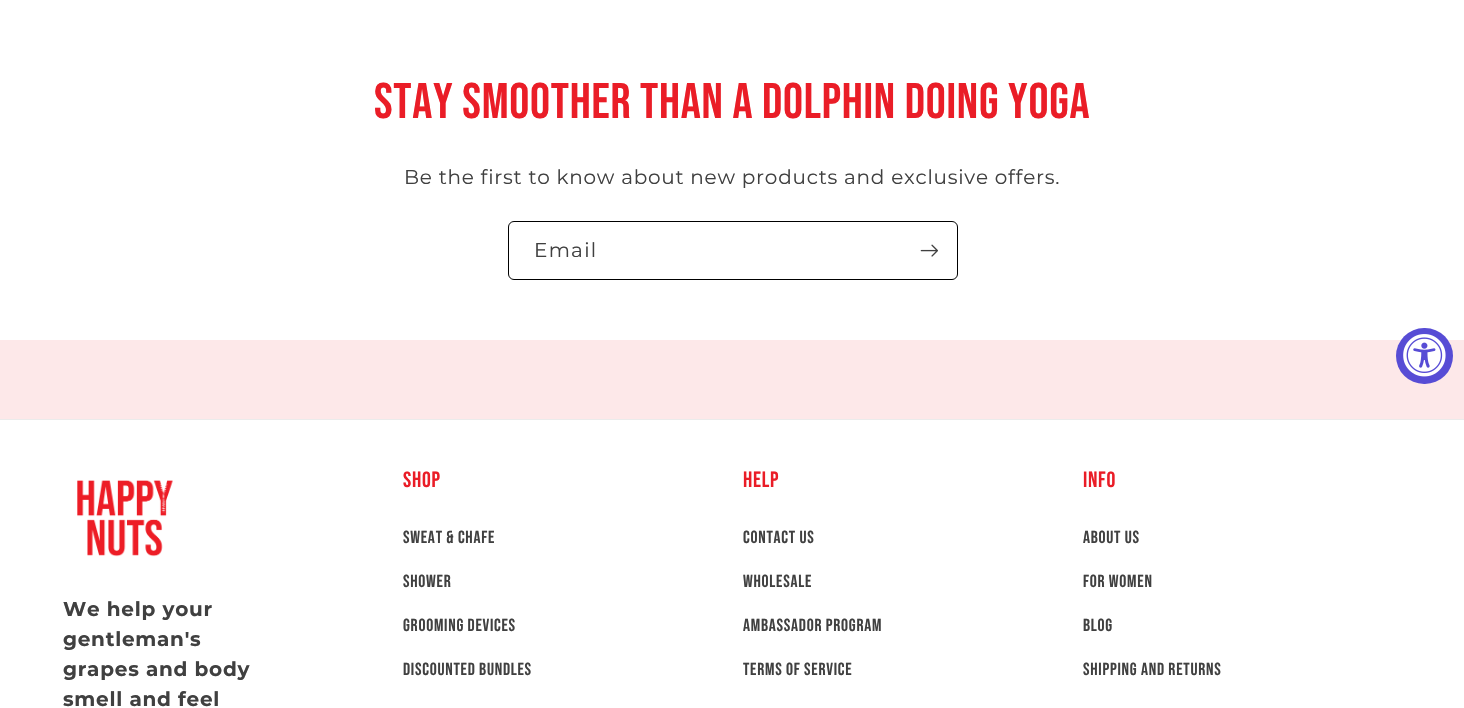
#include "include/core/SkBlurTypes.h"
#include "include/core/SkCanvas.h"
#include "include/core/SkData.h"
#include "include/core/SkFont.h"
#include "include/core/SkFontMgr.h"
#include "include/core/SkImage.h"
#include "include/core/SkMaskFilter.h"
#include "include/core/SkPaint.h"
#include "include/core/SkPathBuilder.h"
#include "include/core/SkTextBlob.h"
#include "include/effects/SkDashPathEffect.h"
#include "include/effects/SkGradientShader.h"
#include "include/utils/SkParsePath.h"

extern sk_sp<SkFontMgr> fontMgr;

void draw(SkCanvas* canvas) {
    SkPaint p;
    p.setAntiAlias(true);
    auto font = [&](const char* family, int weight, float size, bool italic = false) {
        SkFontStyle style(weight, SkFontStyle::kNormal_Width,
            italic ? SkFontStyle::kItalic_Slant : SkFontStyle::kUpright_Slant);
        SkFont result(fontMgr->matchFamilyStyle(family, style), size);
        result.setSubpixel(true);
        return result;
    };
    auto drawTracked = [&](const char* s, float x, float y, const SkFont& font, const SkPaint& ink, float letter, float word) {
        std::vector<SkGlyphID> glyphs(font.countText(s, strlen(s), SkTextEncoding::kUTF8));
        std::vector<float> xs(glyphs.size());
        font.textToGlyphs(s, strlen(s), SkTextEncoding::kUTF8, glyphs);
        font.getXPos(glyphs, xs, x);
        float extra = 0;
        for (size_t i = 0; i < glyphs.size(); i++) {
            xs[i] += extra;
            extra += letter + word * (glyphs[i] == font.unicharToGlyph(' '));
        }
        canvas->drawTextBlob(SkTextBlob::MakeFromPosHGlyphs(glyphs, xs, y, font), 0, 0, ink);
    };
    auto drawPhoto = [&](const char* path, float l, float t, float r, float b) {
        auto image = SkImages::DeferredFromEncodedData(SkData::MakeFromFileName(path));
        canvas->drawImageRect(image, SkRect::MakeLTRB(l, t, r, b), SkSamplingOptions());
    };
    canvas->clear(0xFFFFFFFF);
    auto font1 = font("Bebas Neue", 400, 50);
    p.setColor(0xFFEA1D27);
    drawTracked("STAY Smoother than a dolphin doing yoga", 374, 118, font1, p, 0.75f, 0);
    auto font2 = font("Montserrat", 100, 20);
    p.setColor(0xFF404040);
    drawTracked("Be the first to know about new products and exclusive offers.", 404, 184, font2, p, 0.75f, 0);
    p.setStyle(SkPaint::kStroke_Style);
    p.setStrokeWidth(1);
    p.setColor(0xFF000000);
    canvas->drawRoundRect(SkRect::MakeLTRB(508.5f, 221.5f, 957.5f, 279.5f), 5.5f, 5.5f, p);
    p.setStyle(SkPaint::kFill_Style);
    p.setColor(0xFF404040);
    drawTracked("Email", 534, 257, font2, p, 1.25f, 0);
    drawPhoto("media/1.png", 920, 244, 938, 257);
    p.setColor(0xFFFDE8E9);
    canvas->drawRect(SkRect::MakeLTRB(0, 340, 1464, 419), p);
    p.setColor(0xFF574CD5);
    canvas->drawRoundRect(SkRect::MakeLTRB(1396, 328, 1453, 384), 28, 28, p);
    drawPhoto("media/2.png", 1403, 334, 1446, 377);
    p.setColor(0xFFEBEBEB);
    canvas->drawRect(SkRect::MakeLTRB(0, 419, 1464, 420), p);
    drawPhoto("media/3.png", 77, 480, 173, 557);
    auto font3 = font("Montserrat", 700, 20);
    p.setColor(0xFF404040);
    {
        const struct { const char* s; float x, y; } items[] = {
            {"We help your", 63, 616},
            {"gentleman's", 63, 646},
            {"grapes and body", 63, 676},
            {"smell and feel", 63, 706},
        };
        for (auto [s, x, y] : items) {
            drawTracked(s, x, y, font3, p, 0.75f, 0);
        }
    }
    auto font4 = font("Bebas Neue", 400, 22);
    p.setColor(0xFFEA1D27);
    drawTracked("Shop", 403, 487, font4, p, 0.75f, 0);
    auto font5 = font("Bebas Neue", 400, 17.5f);
    p.setColor(0xFF404040);
    {
        const struct { const char* s; float x, y; } items[] = {
            {"Sweat & Chafe", 403, 543},
            {"Shower", 403, 587},
            {"Grooming Devices", 403, 631},
            {"Discounted Bundles", 403, 675},
        };
        for (auto [s, x, y] : items) {
            drawTracked(s, x, y, font5, p, 0.75f, 0);
        }
    }
    p.setColor(0xFFEA1D27);
    drawTracked("Help", 743, 487, font4, p, 0.75f, 0);
    p.setColor(0xFF404040);
    {
        const struct { const char* s; float x, y; } items[] = {
            {"Contact Us", 743, 543},
            {"Wholesale", 743, 587},
            {"Ambassador Program", 743, 631},
            {"Terms of Service", 743, 675},
        };
        for (auto [s, x, y] : items) {
            drawTracked(s, x, y, font5, p, 0.75f, 0);
        }
    }
    p.setColor(0xFFEA1D27);
    drawTracked("INFO", 1083, 487, font4, p, 0.75f, 0);
    p.setColor(0xFF404040);
    {
        const struct { const char* s; float x, y; } items[] = {
            {"About US", 1083, 543},
            {"For Women", 1083, 587},
            {"Blog", 1083, 631},
            {"Shipping and Returns", 1083, 675},
        };
        for (auto [s, x, y] : items) {
            drawTracked(s, x, y, font5, p, 0.75f, 0);
        }
    }
}
